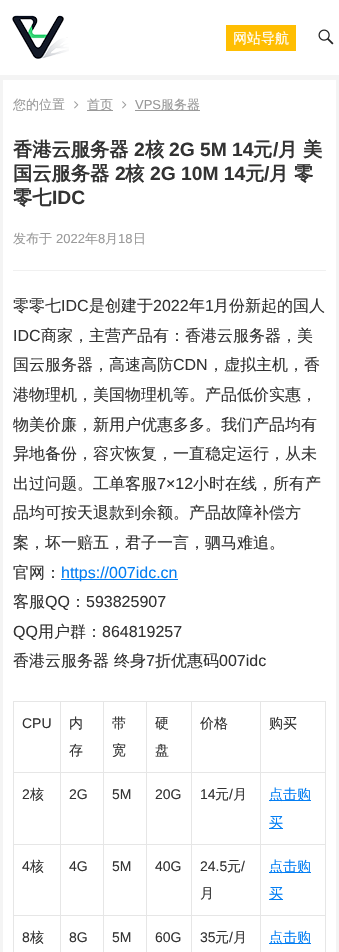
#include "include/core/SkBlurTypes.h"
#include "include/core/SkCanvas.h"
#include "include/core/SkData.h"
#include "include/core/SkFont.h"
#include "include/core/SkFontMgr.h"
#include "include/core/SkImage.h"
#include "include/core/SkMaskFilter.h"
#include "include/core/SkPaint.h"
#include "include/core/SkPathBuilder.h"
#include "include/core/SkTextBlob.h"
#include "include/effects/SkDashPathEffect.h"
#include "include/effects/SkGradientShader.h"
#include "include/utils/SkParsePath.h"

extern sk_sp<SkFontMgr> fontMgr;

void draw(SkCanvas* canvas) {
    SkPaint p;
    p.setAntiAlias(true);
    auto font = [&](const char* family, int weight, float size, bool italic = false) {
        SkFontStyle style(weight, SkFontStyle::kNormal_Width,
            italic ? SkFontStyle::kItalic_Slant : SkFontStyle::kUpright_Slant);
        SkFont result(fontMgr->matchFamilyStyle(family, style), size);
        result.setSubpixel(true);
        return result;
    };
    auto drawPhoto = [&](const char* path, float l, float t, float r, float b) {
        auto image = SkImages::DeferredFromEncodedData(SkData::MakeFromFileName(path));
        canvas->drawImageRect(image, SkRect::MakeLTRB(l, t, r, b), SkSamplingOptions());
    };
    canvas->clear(0xFFF4F4F4);
    p.setColor(0xFFFFFFFF);
    canvas->drawRect(SkRect::MakeLTRB(0, 0, 339, 75), p);
    drawPhoto("media/1.png", 12, 15, 69, 59);
    p.setColor(0xFFFFBE02);
    canvas->drawRect(SkRect::MakeLTRB(226, 25, 296, 51), p);
    auto font1 = font("WenQuanYi Zen Hei", 500, 14);
    p.setColor(0xFFFFFFFF);
    canvas->drawString("网站导航", 233, 43, font1, p);
    drawPhoto("media/2.png", 318, 29, 334, 45);
    canvas->drawRect(SkRect::MakeLTRB(3, 80, 336, 952), p);
    auto font2 = font("WenQuanYi Zen Hei", 500, 13);
    p.setColor(0xFF999999);
    canvas->drawString("您的位置", 13, 109, font2, p);
    drawPhoto("media/3.png", 74, 101, 79, 109);
    canvas->drawRect(SkRect::MakeLTRB(87, 110, 113, 111), p);
    canvas->drawString("首页", 87, 109, font2, p);
    drawPhoto("media/3.png", 122, 101, 127, 109);
    auto font3 = font("Liberation Sans", 400, 13);
    canvas->drawString("VPS", 135, 109, font3, p);
    canvas->drawRect(SkRect::MakeLTRB(135, 110, 200, 111), p);
    canvas->drawString("服务器", 161, 109, font2, p);
    p.setColor(0xFFF0F0F0);
    canvas->drawRect(SkRect::MakeLTRB(13, 270, 326, 271), p);
    auto font4 = font("WenQuanYi Zen Hei", 700, 19.25f);
    p.setColor(0xFF333333);
    canvas->drawString("香港云服务器", 13, 156, font4, p);
    auto font5 = font("Liberation Sans", 700, 19.25f);
    canvas->drawString("2", 134, 156, font5, p);
    canvas->drawString("核", 145, 156, font4, p);
    canvas->drawString("2G 5M 14", 169, 156, font5, p);
    canvas->drawString("元", 253, 156, font4, p);
    canvas->drawString("/", 273, 156, font5, p);
    {
        const struct { const char* s; float x, y; } items[] = {
            {"月", 278, 156},
            {"美", 303, 156},
            {"国云服务器", 13, 180},
        };
        for (auto [s, x, y] : items) {
            canvas->drawString(s, x, y, font4, p);
        }
    }
    canvas->drawString("2", 115, 180, font5, p);
    canvas->drawString("核", 125, 180, font4, p);
    canvas->drawString("2G 10M 14", 150, 180, font5, p);
    canvas->drawString("元", 245, 180, font4, p);
    canvas->drawString("/", 264, 180, font5, p);
    {
        const struct { const char* s; float x, y; } items[] = {
            {"月", 269, 180},
            {"零", 294, 180},
            {"零七", 13, 204},
        };
        for (auto [s, x, y] : items) {
            canvas->drawString(s, x, y, font4, p);
        }
    }
    canvas->drawString("IDC", 52, 204, font5, p);
    p.setColor(0xFF999999);
    canvas->drawString("发布于", 13, 243, font2, p);
    canvas->drawString("2022", 56, 243, font3, p);
    canvas->drawString("年", 85, 243, font2, p);
    canvas->drawString("8", 98, 243, font3, p);
    canvas->drawString("月", 105, 243, font2, p);
    canvas->drawString("18", 118, 243, font3, p);
    canvas->drawString("日", 133, 243, font2, p);
    auto font6 = font("WenQuanYi Zen Hei", 500, 16);
    p.setColor(0xFF333333);
    canvas->drawString("零零七", 13, 311, font6, p);
    auto font7 = font("Liberation Sans", 400, 16);
    canvas->drawString("IDC", 61, 311, font7, p);
    canvas->drawString("是创建于", 89, 311, font6, p);
    canvas->drawString("2022", 153, 311, font7, p);
    canvas->drawString("年", 189, 311, font6, p);
    canvas->drawString("1", 205, 311, font7, p);
    canvas->drawString("月份新起的国人", 213, 311, font6, p);
    canvas->drawString("IDC", 13, 341, font7, p);
    canvas->drawString("商家，主营产品有：香港云服务器，美", 41, 341, font6, p);
    canvas->drawString("国云服务器，高速高防", 13, 370, font6, p);
    canvas->drawString("CDN", 173, 370, font7, p);
    {
        const struct { const char* s; float x, y; } items[] = {
            {"，虚拟主机，香", 208, 370},
            {"港物理机，美国物理机等。产品低价实惠，", 13, 400},
            {"物美价廉，新用户优惠多多。我们产品均有", 13, 430},
            {"异地备份，容灾恢复，一直稳定运行，从未", 13, 459},
            {"出过问题。工单客服", 13, 489},
        };
        for (auto [s, x, y] : items) {
            canvas->drawString(s, x, y, font6, p);
        }
    }
    canvas->drawString("7×12", 157, 489, font7, p);
    {
        const struct { const char* s; float x, y; } items[] = {
            {"小时在线，所有产", 193, 489},
            {"品均可按天退款到余额。产品故障补偿方", 13, 518},
            {"案，坏一赔五，君子一言，驷马难追。", 13, 548},
            {"官网：", 13, 578},
        };
        for (auto [s, x, y] : items) {
            canvas->drawString(s, x, y, font6, p);
        }
    }
    p.setColor(0xFF037EF3);
    canvas->drawRect(SkRect::MakeLTRB(61, 579, 178, 580), p);
    canvas->drawString("https://007idc.cn", 61, 578, font7, p);
    p.setColor(0xFF333333);
    canvas->drawString("客服", 13, 607, font6, p);
    canvas->drawString("QQ", 45, 607, font7, p);
    canvas->drawString("：", 70, 607, font6, p);
    canvas->drawString("593825907", 86, 607, font7, p);
    canvas->drawString("QQ", 13, 637, font7, p);
    canvas->drawString("用户群：", 38, 637, font6, p);
    canvas->drawString("864819257", 102, 637, font7, p);
    canvas->drawString("香港云服务器", 13, 666, font6, p);
    canvas->drawString("终身", 114, 666, font6, p);
    canvas->drawString("7", 146, 666, font7, p);
    canvas->drawString("折优惠码", 155, 666, font6, p);
    canvas->drawString("007idc", 219, 666, font7, p);
    {
        const struct { float l, t, r, b; SkColor color; } items[] = {
            {260, 701, 326, 702, 0xFFE6E6E6},
            {260, 772, 326, 773, 0xFFE6E6E6},
            {260, 844, 326, 845, 0xFFE6E6E6},
            {260, 915, 326, 916, 0xFFE6E6E6},
            {260, 915, 261, 952, 0xFFE6E6E6},
            {191, 915, 261, 916, 0xFFE6E6E6},
            {260, 844, 261, 916, 0xFFE6E6E6},
            {191, 844, 261, 845, 0xFFE6E6E6},
            {260, 772, 261, 845, 0xFFE6E6E6},
            {191, 772, 261, 773, 0xFFE6E6E6},
            {260, 701, 261, 773, 0xFFE6E6E6},
            {191, 701, 261, 702, 0xFFE6E6E6},
            {191, 915, 192, 952, 0xFFE6E6E6},
            {146, 915, 192, 916, 0xFFE6E6E6},
            {191, 844, 192, 916, 0xFFE6E6E6},
            {146, 844, 192, 845, 0xFFE6E6E6},
            {191, 772, 192, 845, 0xFFE6E6E6},
            {146, 772, 192, 773, 0xFFE6E6E6},
            {191, 701, 192, 773, 0xFFE6E6E6},
            {146, 701, 192, 702, 0xFFE6E6E6},
            {146, 915, 147, 952, 0xFFE6E6E6},
            {103, 915, 147, 916, 0xFFE6E6E6},
            {146, 844, 147, 916, 0xFFE6E6E6},
            {103, 844, 147, 845, 0xFFE6E6E6},
            {146, 772, 147, 845, 0xFFE6E6E6},
            {103, 772, 147, 773, 0xFFE6E6E6},
            {146, 701, 147, 773, 0xFFE6E6E6},
            {103, 701, 147, 702, 0xFFE6E6E6},
            {103, 915, 104, 952, 0xFFE6E6E6},
            {60, 915, 104, 916, 0xFFE6E6E6},
            {103, 844, 104, 916, 0xFFE6E6E6},
            {60, 844, 104, 845, 0xFFE6E6E6},
            {103, 772, 104, 845, 0xFFE6E6E6},
            {60, 772, 104, 773, 0xFFE6E6E6},
            {103, 701, 104, 773, 0xFFE6E6E6},
            {60, 701, 104, 702, 0xFFE6E6E6},
            {60, 915, 61, 952, 0xFFE6E6E6},
            {13, 915, 61, 916, 0xFFE6E6E6},
            {60, 844, 61, 916, 0xFFE6E6E6},
            {13, 844, 61, 845, 0xFFE6E6E6},
            {60, 772, 61, 845, 0xFFE6E6E6},
            {13, 772, 61, 773, 0xFFE6E6E6},
            {60, 701, 61, 773, 0xFFE6E6E6},
            {13, 701, 61, 702, 0xFFE6E6E6},
            {13, 915, 14, 952, 0xFFE6E6E6},
            {13, 844, 14, 916, 0xFFE6E6E6},
            {13, 772, 14, 845, 0xFFE6E6E6},
            {13, 701, 14, 773, 0xFFE6E6E6},
        };
        for (auto [l, t, r, b, color] : items) {
            p.setColor(color);
            canvas->drawRect(SkRect::MakeLTRB(l, t, r, b), p);
        }
    }
    auto font8 = font("Liberation Sans", 400, 14);
    p.setColor(0xFF333333);
    canvas->drawString("CPU", 22, 728, font8, p);
    {
        const struct { const char* s; float x, y; } items[] = {
            {"内", 69, 728},
            {"存", 69, 755},
            {"带", 112, 728},
            {"宽", 112, 755},
            {"硬", 155, 728},
            {"盘", 155, 755},
            {"价格", 200, 728},
        };
        for (auto [s, x, y] : items) {
            canvas->drawString(s, x, y, font1, p);
        }
    }
    {
        const struct { float l, t, r, b; SkColor color; } items[] = {
            {325, 915, 326, 952, 0xFFE6E6E6},
            {325, 844, 326, 916, 0xFFE6E6E6},
            {325, 772, 326, 845, 0xFFE6E6E6},
            {325, 701, 326, 773, 0xFFE6E6E6},
        };
        for (auto [l, t, r, b, color] : items) {
            p.setColor(color);
            canvas->drawRect(SkRect::MakeLTRB(l, t, r, b), p);
        }
    }
    p.setColor(0xFF333333);
    canvas->drawString("购买", 269, 728, font1, p);
    canvas->drawString("2", 22, 799, font8, p);
    canvas->drawString("核", 30, 799, font1, p);
    {
        const struct { const char* s; float x, y; } items[] = {
            {"2G", 69, 799},
            {"5M", 112, 799},
            {"20G", 155, 799},
            {"14", 200, 799},
        };
        for (auto [s, x, y] : items) {
            canvas->drawString(s, x, y, font8, p);
        }
    }
    canvas->drawString("元", 215, 799, font1, p);
    canvas->drawString("/", 229, 799, font8, p);
    canvas->drawString("月", 233, 799, font1, p);
    p.setColor(0xFF037EF3);
    canvas->drawRect(SkRect::MakeLTRB(269, 800, 311, 801), p);
    canvas->drawString("点击购", 269, 799, font1, p);
    canvas->drawRect(SkRect::MakeLTRB(269, 828, 283, 829), p);
    canvas->drawString("买", 269, 827, font1, p);
    p.setColor(0xFF333333);
    canvas->drawString("4", 22, 871, font8, p);
    canvas->drawString("核", 30, 871, font1, p);
    {
        const struct { const char* s; float x, y; } items[] = {
            {"4G", 69, 871},
            {"5M", 112, 871},
            {"40G", 155, 871},
            {"24.5", 200, 871},
        };
        for (auto [s, x, y] : items) {
            canvas->drawString(s, x, y, font8, p);
        }
    }
    canvas->drawString("元", 227, 871, font1, p);
    canvas->drawString("/", 241, 871, font8, p);
    canvas->drawString("月", 200, 898, font1, p);
    p.setColor(0xFF037EF3);
    canvas->drawRect(SkRect::MakeLTRB(269, 872, 311, 873), p);
    canvas->drawString("点击购", 269, 871, font1, p);
    canvas->drawRect(SkRect::MakeLTRB(269, 899, 283, 900), p);
    canvas->drawString("买", 269, 898, font1, p);
    p.setColor(0xFF333333);
    canvas->drawString("8", 22, 942, font8, p);
    canvas->drawString("核", 30, 942, font1, p);
    {
        const struct { const char* s; float x, y; } items[] = {
            {"8G", 69, 942},
            {"5M", 112, 942},
            {"60G", 155, 942},
            {"35", 200, 942},
        };
        for (auto [s, x, y] : items) {
            canvas->drawString(s, x, y, font8, p);
        }
    }
    canvas->drawString("元", 215, 942, font1, p);
    canvas->drawString("/", 229, 942, font8, p);
    canvas->drawString("月", 233, 942, font1, p);
    p.setColor(0xFF037EF3);
    canvas->drawRect(SkRect::MakeLTRB(269, 943, 311, 944), p);
    canvas->drawString("点击购", 269, 942, font1, p);
}
